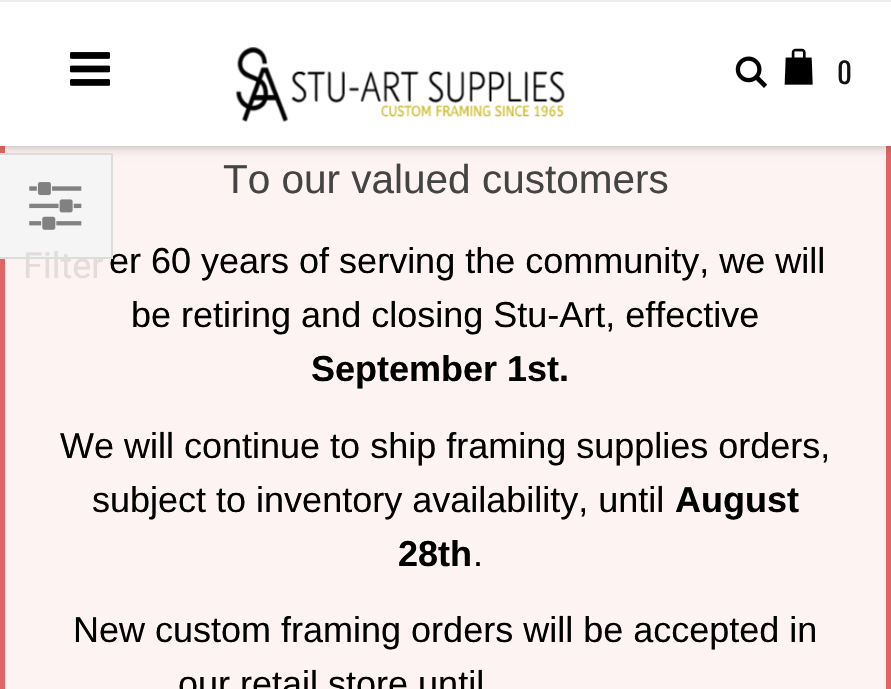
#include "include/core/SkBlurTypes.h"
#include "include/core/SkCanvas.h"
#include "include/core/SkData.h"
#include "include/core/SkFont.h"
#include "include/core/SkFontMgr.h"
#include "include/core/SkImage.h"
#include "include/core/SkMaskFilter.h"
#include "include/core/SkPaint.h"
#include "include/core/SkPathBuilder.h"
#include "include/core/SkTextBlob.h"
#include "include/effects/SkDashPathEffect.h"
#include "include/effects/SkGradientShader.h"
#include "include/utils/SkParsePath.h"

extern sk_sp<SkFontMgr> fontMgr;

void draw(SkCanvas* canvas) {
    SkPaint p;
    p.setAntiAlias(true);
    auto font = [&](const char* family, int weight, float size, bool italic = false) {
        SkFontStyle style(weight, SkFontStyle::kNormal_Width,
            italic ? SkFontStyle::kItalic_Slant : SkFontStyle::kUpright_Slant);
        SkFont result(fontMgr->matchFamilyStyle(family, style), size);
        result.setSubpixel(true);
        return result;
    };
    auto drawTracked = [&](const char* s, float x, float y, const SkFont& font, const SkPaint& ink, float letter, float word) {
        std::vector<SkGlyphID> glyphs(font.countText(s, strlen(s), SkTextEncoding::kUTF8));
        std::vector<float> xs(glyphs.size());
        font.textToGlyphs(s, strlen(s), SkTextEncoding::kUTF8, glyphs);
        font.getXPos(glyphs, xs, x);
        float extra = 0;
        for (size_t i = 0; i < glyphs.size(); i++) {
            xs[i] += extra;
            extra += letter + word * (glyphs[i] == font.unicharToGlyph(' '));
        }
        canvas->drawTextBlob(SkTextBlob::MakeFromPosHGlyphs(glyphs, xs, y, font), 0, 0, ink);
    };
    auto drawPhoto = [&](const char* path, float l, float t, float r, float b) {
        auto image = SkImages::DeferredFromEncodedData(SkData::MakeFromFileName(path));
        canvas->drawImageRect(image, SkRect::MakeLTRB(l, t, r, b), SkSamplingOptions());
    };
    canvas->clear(0xFFFDF3F2);
    p.setStyle(SkPaint::kStroke_Style);
    p.setStrokeWidth(5);
    p.setColor(0xFFE06666);
    canvas->drawRect(SkRect::MakeLTRB(2.5f, 2.5f, 888.5f, 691.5f), p);
    p.setStyle(SkPaint::kFill_Style);
    p.setColor(0x4D000000);
    p.setMaskFilter(SkMaskFilter::MakeBlur(kNormal_SkBlurStyle, 5.5f));
    canvas->drawRect(SkRect::MakeLTRB(0, 0, 891, 146), p);
    p.setMaskFilter(nullptr);
    p.setColor(0xFFFFFFFF);
    canvas->drawRect(SkRect::MakeLTRB(0, 2, 891, 146), p);
    p.setColor(0xFFEEEEEE);
    canvas->drawRect(SkRect::MakeLTRB(0, 0, 891, 2), p);
    drawPhoto("media/1.png", 70, 52, 110, 86);
    drawPhoto("media/2.png", 235, 47, 565, 122);
    drawPhoto("media/3.png", 735, 56, 767, 88);
    drawPhoto("media/4.png", 784, 48, 813, 85);
    auto font1 = font("Oswald", 400, 29);
    p.setColor(0xFF111111);
    drawTracked("0", 837, 84, font1, p, 1, 0);
    auto font2 = font("Liberation Sans", 400, 36);
    p.setColor(0xFF000000);
    canvas->drawString("er 60 years of serving the community, we will", 109, 273, font2, p);
    p.setColor(0xFFF5F5F5);
    canvas->drawRect(SkRect::MakeLTRB(-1, 154, 112, 258), p);
    p.setStyle(SkPaint::kStroke_Style);
    p.setStrokeWidth(2);
    p.setColor(0xFFDCDCDA);
    canvas->drawRect(SkRect::MakeLTRB(-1, 154, 112, 258), p);
    drawPhoto("media/5.png", 29, 182, 82, 230);
    auto font3 = font("Roboto", 400, 36);
    p.setStyle(SkPaint::kFill_Style);
    p.setColor(0xFFE3DCDB);
    canvas->drawString("Filter", 23, 278, font3, p);
    auto font4 = font("Liberation Sans", 400, 40.5f);
    p.setColor(0xFF444444);
    canvas->drawString("To our valued customers", 223, 193, font4, p);
    p.setColor(0xFF000000);
    canvas->drawString("be retiring and closing Stu-Art, effective", 131, 327, font2, p);
    auto font5 = font("Liberation Sans", 700, 36);
    canvas->drawString("September 1st.", 311, 381, font5, p);
    canvas->drawString("We will continue to ship framing supplies orders,", 60, 458, font2, p);
    canvas->drawString("subject to inventory availability, until", 92, 512, font2, p);
    canvas->drawString("August", 675, 512, font5, p);
    canvas->drawString("28th", 398, 566, font5, p);
    {
        const struct { const char* s; float x, y; } items[] = {
            {".", 473, 566},
            {"New custom framing orders will be accepted in", 73, 642},
            {"our retail store until", 178, 696},
        };
        for (auto [s, x, y] : items) {
            canvas->drawString(s, x, y, font2, p);
        }
    }
}
